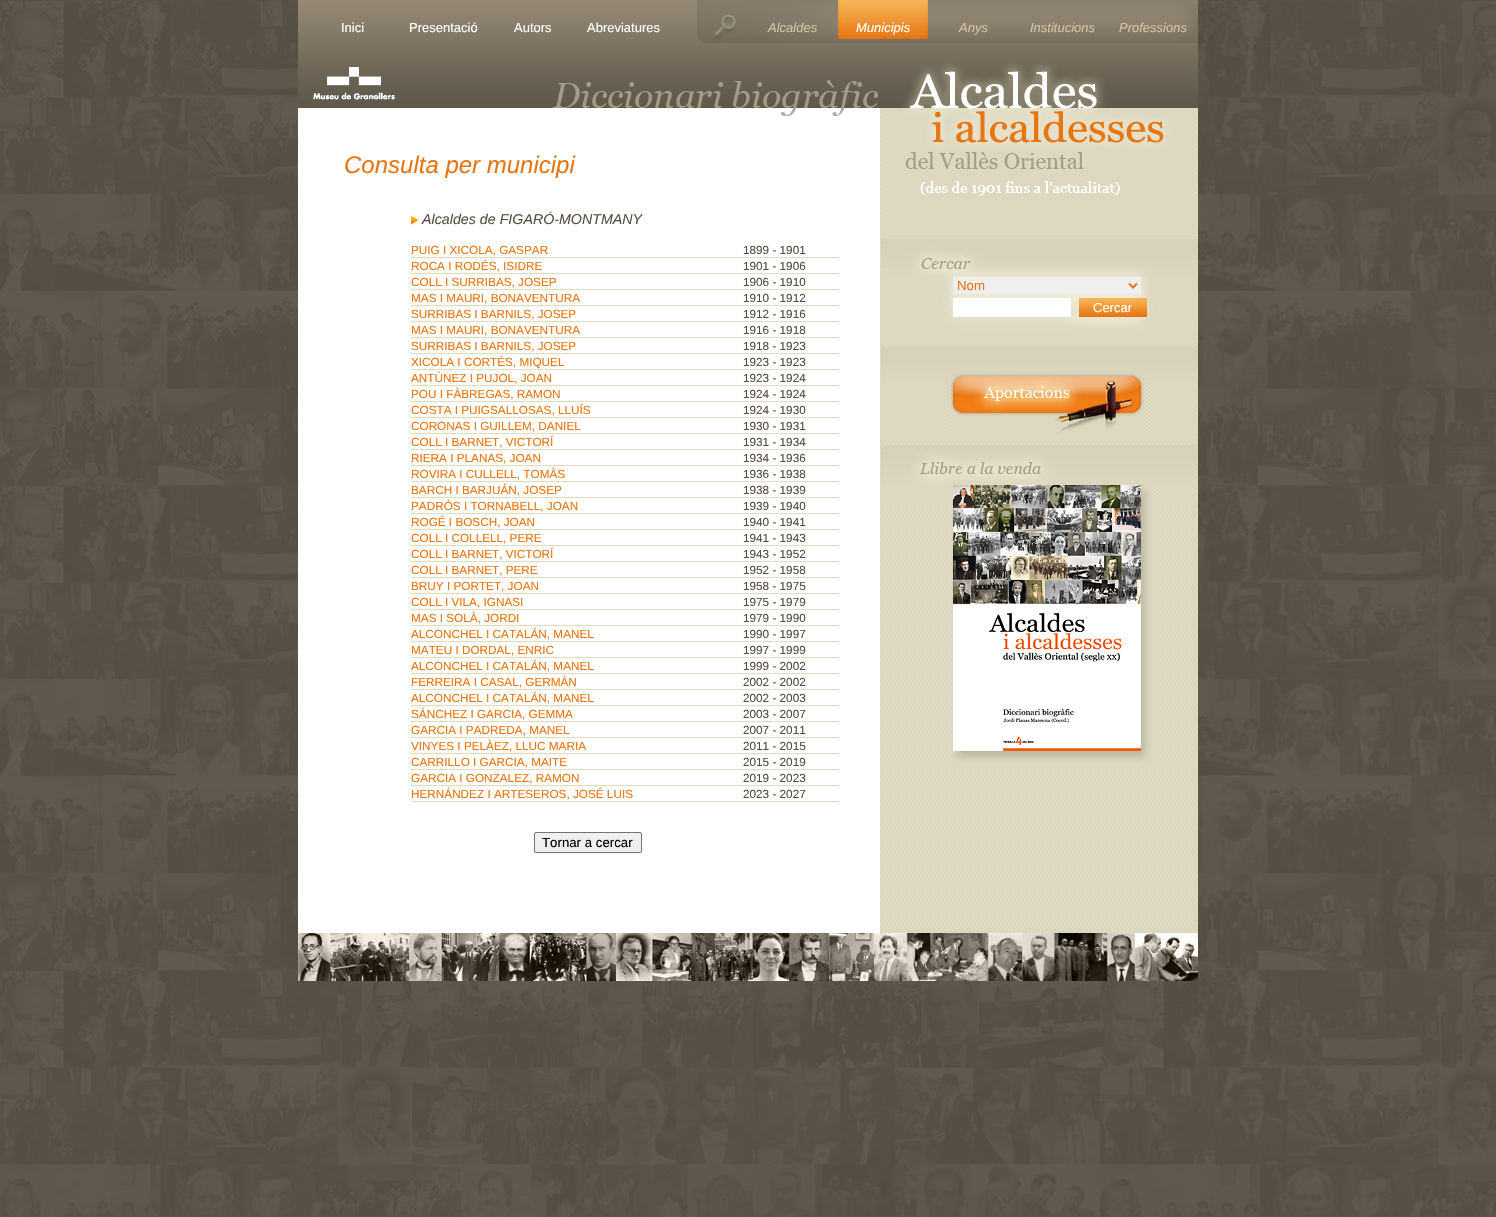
#include "include/core/SkBlurTypes.h"
#include "include/core/SkCanvas.h"
#include "include/core/SkData.h"
#include "include/core/SkFont.h"
#include "include/core/SkFontMgr.h"
#include "include/core/SkImage.h"
#include "include/core/SkMaskFilter.h"
#include "include/core/SkPaint.h"
#include "include/core/SkPathBuilder.h"
#include "include/core/SkTextBlob.h"
#include "include/effects/SkDashPathEffect.h"
#include "include/effects/SkGradientShader.h"
#include "include/utils/SkParsePath.h"

extern sk_sp<SkFontMgr> fontMgr;

void draw(SkCanvas* canvas) {
    SkPaint p;
    p.setAntiAlias(true);
    auto font = [&](const char* family, int weight, float size, bool italic = false) {
        SkFontStyle style(weight, SkFontStyle::kNormal_Width,
            italic ? SkFontStyle::kItalic_Slant : SkFontStyle::kUpright_Slant);
        SkFont result(fontMgr->matchFamilyStyle(family, style), size);
        result.setSubpixel(true);
        return result;
    };
    auto drawPhoto = [&](const char* path, float l, float t, float r, float b) {
        auto image = SkImages::DeferredFromEncodedData(SkData::MakeFromFileName(path));
        canvas->drawImageRect(image, SkRect::MakeLTRB(l, t, r, b), SkSamplingOptions());
    };
    canvas->clear(0xFFFFFFFF);
    drawPhoto("media/1.png", 0, 0, 1496, 1217);
    p.setColor(0xFFFFFFFF);
    canvas->drawRect(SkRect::MakeLTRB(298, 108, 880, 933), p);
    drawPhoto("media/2.png", 880, 108, 1198, 933);
    drawPhoto("media/3.png", 298, 0, 1198, 108);
    auto font1 = font("Liberation Sans", 400, 13);
    {
        const struct { const char* s; float x, y; } items[] = {
            {"Inici", 341, 32},
            {"Presentació", 409, 32},
            {"Autors", 514, 32},
            {"Abreviatures", 587, 32},
        };
        for (auto [s, x, y] : items) {
            canvas->drawString(s, x, y, font1, p);
        }
    }
    auto font2 = font("Liberation Sans", 400, 13, true);
    p.setColor(0xFFD3C2A4);
    canvas->drawString("Alcaldes", 768, 32, font2, p);
    drawPhoto("media/4.png", 838, 0, 928, 39);
    p.setColor(0xFFFFFFFF);
    canvas->drawString("Municipis", 856, 32, font2, p);
    p.setColor(0xFFD3C2A4);
    {
        const struct { const char* s; float x, y; } items[] = {
            {"Anys", 959, 32},
            {"Institucions", 1030, 32},
            {"Professions", 1119, 32},
        };
        for (auto [s, x, y] : items) {
            canvas->drawString(s, x, y, font2, p);
        }
    }
    drawPhoto("media/5.png", 313, 67, 395, 100);
    drawPhoto("media/6.png", 781, 108, 845, 116);
    auto font3 = font("Liberation Sans", 400, 24, true);
    p.setColor(0xFFE67512);
    canvas->drawString("Consulta per municipi", 344, 173, font3, p);
    drawPhoto("media/7.png", 411, 216, 419, 225);
    auto font4 = font("Liberation Sans", 400, 14.25f, true);
    p.setColor(0xFF544D41);
    canvas->drawString("Alcaldes de FIGARÓ-MONTMANY", 422, 224, font4, p);
    auto font5 = font("Liberation Sans", 400, 11.75f);
    p.setColor(0xFFE67512);
    canvas->drawString("PUIG I XICOLA, GASPAR", 411, 254, font5, p);
    p.setColor(0xFFDFDAC1);
    canvas->drawRect(SkRect::MakeLTRB(411, 257, 839, 258), p);
    p.setColor(0xFF544D41);
    canvas->drawString("1899 - 1901", 743, 254, font5, p);
    p.setColor(0xFFE67512);
    canvas->drawString("ROCA I RODÉS, ISIDRE", 411, 270, font5, p);
    p.setColor(0xFFDFDAC1);
    canvas->drawRect(SkRect::MakeLTRB(411, 273, 839, 274), p);
    p.setColor(0xFF544D41);
    canvas->drawString("1901 - 1906", 743, 270, font5, p);
    p.setColor(0xFFE67512);
    canvas->drawString("COLL I SURRIBAS, JOSEP", 411, 286, font5, p);
    p.setColor(0xFFDFDAC1);
    canvas->drawRect(SkRect::MakeLTRB(411, 289, 839, 290), p);
    p.setColor(0xFF544D41);
    canvas->drawString("1906 - 1910", 743, 286, font5, p);
    p.setColor(0xFFE67512);
    canvas->drawString("MAS I MAURI, BONAVENTURA", 411, 302, font5, p);
    p.setColor(0xFFDFDAC1);
    canvas->drawRect(SkRect::MakeLTRB(411, 305, 839, 306), p);
    p.setColor(0xFF544D41);
    canvas->drawString("1910 - 1912", 743, 302, font5, p);
    p.setColor(0xFFE67512);
    canvas->drawString("SURRIBAS I BARNILS, JOSEP", 411, 318, font5, p);
    p.setColor(0xFFDFDAC1);
    canvas->drawRect(SkRect::MakeLTRB(411, 321, 839, 322), p);
    p.setColor(0xFF544D41);
    canvas->drawString("1912 - 1916", 743, 318, font5, p);
    p.setColor(0xFFE67512);
    canvas->drawString("MAS I MAURI, BONAVENTURA", 411, 334, font5, p);
    p.setColor(0xFFDFDAC1);
    canvas->drawRect(SkRect::MakeLTRB(411, 337, 839, 338), p);
    p.setColor(0xFF544D41);
    canvas->drawString("1916 - 1918", 743, 334, font5, p);
    p.setColor(0xFFE67512);
    canvas->drawString("SURRIBAS I BARNILS, JOSEP", 411, 350, font5, p);
    p.setColor(0xFFDFDAC1);
    canvas->drawRect(SkRect::MakeLTRB(411, 353, 839, 354), p);
    p.setColor(0xFF544D41);
    canvas->drawString("1918 - 1923", 743, 350, font5, p);
    p.setColor(0xFFE67512);
    canvas->drawString("XICOLA I CORTÉS, MIQUEL", 411, 366, font5, p);
    p.setColor(0xFFDFDAC1);
    canvas->drawRect(SkRect::MakeLTRB(411, 369, 839, 370), p);
    p.setColor(0xFF544D41);
    canvas->drawString("1923 - 1923", 743, 366, font5, p);
    p.setColor(0xFFE67512);
    canvas->drawString("ANTÚNEZ I PUJOL, JOAN", 411, 382, font5, p);
    p.setColor(0xFFDFDAC1);
    canvas->drawRect(SkRect::MakeLTRB(411, 385, 839, 386), p);
    p.setColor(0xFF544D41);
    canvas->drawString("1923 - 1924", 743, 382, font5, p);
    p.setColor(0xFFE67512);
    canvas->drawString("POU I FÀBREGAS, RAMON", 411, 398, font5, p);
    p.setColor(0xFFDFDAC1);
    canvas->drawRect(SkRect::MakeLTRB(411, 401, 839, 402), p);
    p.setColor(0xFF544D41);
    canvas->drawString("1924 - 1924", 743, 398, font5, p);
    p.setColor(0xFFE67512);
    canvas->drawString("COSTA I PUIGSALLOSAS, LLUÍS", 411, 414, font5, p);
    p.setColor(0xFFDFDAC1);
    canvas->drawRect(SkRect::MakeLTRB(411, 417, 839, 418), p);
    p.setColor(0xFF544D41);
    canvas->drawString("1924 - 1930", 743, 414, font5, p);
    p.setColor(0xFFE67512);
    canvas->drawString("CORONAS I GUILLEM, DANIEL", 411, 430, font5, p);
    p.setColor(0xFFDFDAC1);
    canvas->drawRect(SkRect::MakeLTRB(411, 433, 839, 434), p);
    p.setColor(0xFF544D41);
    canvas->drawString("1930 - 1931", 743, 430, font5, p);
    p.setColor(0xFFE67512);
    canvas->drawString("COLL I BARNET, VICTORÍ", 411, 446, font5, p);
    p.setColor(0xFFDFDAC1);
    canvas->drawRect(SkRect::MakeLTRB(411, 449, 839, 450), p);
    p.setColor(0xFF544D41);
    canvas->drawString("1931 - 1934", 743, 446, font5, p);
    p.setColor(0xFFE67512);
    canvas->drawString("RIERA I PLANAS, JOAN", 411, 462, font5, p);
    p.setColor(0xFFDFDAC1);
    canvas->drawRect(SkRect::MakeLTRB(411, 465, 839, 466), p);
    p.setColor(0xFF544D41);
    canvas->drawString("1934 - 1936", 743, 462, font5, p);
    p.setColor(0xFFE67512);
    canvas->drawString("ROVIRA I CULLELL, TOMÀS", 411, 478, font5, p);
    p.setColor(0xFFDFDAC1);
    canvas->drawRect(SkRect::MakeLTRB(411, 481, 839, 482), p);
    p.setColor(0xFF544D41);
    canvas->drawString("1936 - 1938", 743, 478, font5, p);
    p.setColor(0xFFE67512);
    canvas->drawString("BARCH I BARJUÁN, JOSEP", 411, 494, font5, p);
    p.setColor(0xFFDFDAC1);
    canvas->drawRect(SkRect::MakeLTRB(411, 497, 839, 498), p);
    p.setColor(0xFF544D41);
    canvas->drawString("1938 - 1939", 743, 494, font5, p);
    p.setColor(0xFFE67512);
    canvas->drawString("PADRÓS I TORNABELL, JOAN", 411, 510, font5, p);
    p.setColor(0xFFDFDAC1);
    canvas->drawRect(SkRect::MakeLTRB(411, 513, 839, 514), p);
    p.setColor(0xFF544D41);
    canvas->drawString("1939 - 1940", 743, 510, font5, p);
    p.setColor(0xFFE67512);
    canvas->drawString("ROGÉ I BOSCH, JOAN", 411, 526, font5, p);
    p.setColor(0xFFDFDAC1);
    canvas->drawRect(SkRect::MakeLTRB(411, 529, 839, 530), p);
    p.setColor(0xFF544D41);
    canvas->drawString("1940 - 1941", 743, 526, font5, p);
    p.setColor(0xFFE67512);
    canvas->drawString("COLL I COLLELL, PERE", 411, 542, font5, p);
    p.setColor(0xFFDFDAC1);
    canvas->drawRect(SkRect::MakeLTRB(411, 545, 839, 546), p);
    p.setColor(0xFF544D41);
    canvas->drawString("1941 - 1943", 743, 542, font5, p);
    p.setColor(0xFFE67512);
    canvas->drawString("COLL I BARNET, VICTORÍ", 411, 558, font5, p);
    p.setColor(0xFFDFDAC1);
    canvas->drawRect(SkRect::MakeLTRB(411, 561, 839, 562), p);
    p.setColor(0xFF544D41);
    canvas->drawString("1943 - 1952", 743, 558, font5, p);
    p.setColor(0xFFE67512);
    canvas->drawString("COLL I BARNET, PERE", 411, 574, font5, p);
    p.setColor(0xFFDFDAC1);
    canvas->drawRect(SkRect::MakeLTRB(411, 577, 839, 578), p);
    p.setColor(0xFF544D41);
    canvas->drawString("1952 - 1958", 743, 574, font5, p);
    p.setColor(0xFFE67512);
    canvas->drawString("BRUY I PORTET, JOAN", 411, 590, font5, p);
    p.setColor(0xFFDFDAC1);
    canvas->drawRect(SkRect::MakeLTRB(411, 593, 839, 594), p);
    p.setColor(0xFF544D41);
    canvas->drawString("1958 - 1975", 743, 590, font5, p);
    p.setColor(0xFFE67512);
    canvas->drawString("COLL I VILA, IGNASI", 411, 606, font5, p);
    p.setColor(0xFFDFDAC1);
    canvas->drawRect(SkRect::MakeLTRB(411, 609, 839, 610), p);
    p.setColor(0xFF544D41);
    canvas->drawString("1975 - 1979", 743, 606, font5, p);
    p.setColor(0xFFE67512);
    canvas->drawString("MAS I SOLÀ, JORDI", 411, 622, font5, p);
    p.setColor(0xFFDFDAC1);
    canvas->drawRect(SkRect::MakeLTRB(411, 625, 839, 626), p);
    p.setColor(0xFF544D41);
    canvas->drawString("1979 - 1990", 743, 622, font5, p);
    p.setColor(0xFFE67512);
    canvas->drawString("ALCONCHEL I CATALÁN, MANEL", 411, 638, font5, p);
    p.setColor(0xFFDFDAC1);
    canvas->drawRect(SkRect::MakeLTRB(411, 641, 839, 642), p);
    p.setColor(0xFF544D41);
    canvas->drawString("1990 - 1997", 743, 638, font5, p);
    p.setColor(0xFFE67512);
    canvas->drawString("MATEU I DORDAL, ENRIC", 411, 654, font5, p);
    p.setColor(0xFFDFDAC1);
    canvas->drawRect(SkRect::MakeLTRB(411, 657, 839, 658), p);
    p.setColor(0xFF544D41);
    canvas->drawString("1997 - 1999", 743, 654, font5, p);
    p.setColor(0xFFE67512);
    canvas->drawString("ALCONCHEL I CATALÁN, MANEL", 411, 670, font5, p);
    p.setColor(0xFFDFDAC1);
    canvas->drawRect(SkRect::MakeLTRB(411, 673, 839, 674), p);
    p.setColor(0xFF544D41);
    canvas->drawString("1999 - 2002", 743, 670, font5, p);
    p.setColor(0xFFE67512);
    canvas->drawString("FERREIRA I CASAL, GERMÁN", 411, 686, font5, p);
    p.setColor(0xFFDFDAC1);
    canvas->drawRect(SkRect::MakeLTRB(411, 689, 839, 690), p);
    p.setColor(0xFF544D41);
    canvas->drawString("2002 - 2002", 743, 686, font5, p);
    p.setColor(0xFFE67512);
    canvas->drawString("ALCONCHEL I CATALÁN, MANEL", 411, 702, font5, p);
    p.setColor(0xFFDFDAC1);
    canvas->drawRect(SkRect::MakeLTRB(411, 705, 839, 706), p);
    p.setColor(0xFF544D41);
    canvas->drawString("2002 - 2003", 743, 702, font5, p);
    p.setColor(0xFFE67512);
    canvas->drawString("SÁNCHEZ I GARCIA, GEMMA", 411, 718, font5, p);
    p.setColor(0xFFDFDAC1);
    canvas->drawRect(SkRect::MakeLTRB(411, 721, 839, 722), p);
    p.setColor(0xFF544D41);
    canvas->drawString("2003 - 2007", 743, 718, font5, p);
    p.setColor(0xFFE67512);
    canvas->drawString("GARCIA I PADREDA, MANEL", 411, 734, font5, p);
    p.setColor(0xFFDFDAC1);
    canvas->drawRect(SkRect::MakeLTRB(411, 737, 839, 738), p);
    p.setColor(0xFF544D41);
    canvas->drawString("2007 - 2011", 743, 734, font5, p);
    p.setColor(0xFFE67512);
    canvas->drawString("VINYES I PELÀEZ, LLUC MARIA", 411, 750, font5, p);
    p.setColor(0xFFDFDAC1);
    canvas->drawRect(SkRect::MakeLTRB(411, 753, 839, 754), p);
    p.setColor(0xFF544D41);
    canvas->drawString("2011 - 2015", 743, 750, font5, p);
    p.setColor(0xFFE67512);
    canvas->drawString("CARRILLO I GARCIA, MAITE", 411, 766, font5, p);
    p.setColor(0xFFDFDAC1);
    canvas->drawRect(SkRect::MakeLTRB(411, 769, 839, 770), p);
    p.setColor(0xFF544D41);
    canvas->drawString("2015 - 2019", 743, 766, font5, p);
    p.setColor(0xFFE67512);
    canvas->drawString("GARCIA I GONZALEZ, RAMON", 411, 782, font5, p);
    p.setColor(0xFFDFDAC1);
    canvas->drawRect(SkRect::MakeLTRB(411, 785, 839, 786), p);
    p.setColor(0xFF544D41);
    canvas->drawString("2019 - 2023", 743, 782, font5, p);
    p.setColor(0xFFE67512);
    canvas->drawString("HERNÁNDEZ I ARTESEROS, JOSÉ LUIS", 411, 798, font5, p);
    p.setColor(0xFFDFDAC1);
    canvas->drawRect(SkRect::MakeLTRB(411, 801, 839, 802), p);
    p.setColor(0xFF544D41);
    canvas->drawString("2023 - 2027", 743, 798, font5, p);
    p.setColor(0xFFEFEFEF);
    canvas->drawRoundRect(SkRect::MakeLTRB(534.5f, 832.5f, 641.5f, 852.5f), 1.5f, 1.5f, p);
    p.setStyle(SkPaint::kStroke_Style);
    p.setStrokeWidth(1);
    p.setColor(0xFF767676);
    canvas->drawRoundRect(SkRect::MakeLTRB(534.5f, 832.5f, 641.5f, 852.5f), 1.5f, 1.5f, p);
    auto font6 = font("Liberation Sans", 400, 13.25f);
    p.setStyle(SkPaint::kFill_Style);
    p.setColor(0xFF000000);
    canvas->drawString("Tornar a cercar", 542, 847, font6, p);
    drawPhoto("media/8.png", 881, 108, 1196, 239);
    drawPhoto("media/9.png", 881, 239, 1198, 346);
    p.setColor(0xFFEFEFEF);
    canvas->drawRect(SkRect::MakeLTRB(953, 277, 1141, 294), p);
    p.setStyle(SkPaint::kStroke_Style);
    p.setStrokeWidth(2);
    p.setColor(0xFFE67512);
    canvas->drawPath(SkPathBuilder().moveTo(1129, 283.5f).lineTo(1133, 287.5f).lineTo(1137, 283.5f).detach(), p);
    p.setStyle(SkPaint::kFill_Style);
    canvas->drawString("Nom", 957, 290, font6, p);
    p.setColor(0xFFFFFFFF);
    canvas->drawRect(SkRect::MakeLTRB(953, 298, 1071, 317), p);
    p.setColor(0xFFE67512);
    canvas->drawRect(SkRect::MakeLTRB(1079, 316, 1147, 317), p);
    drawPhoto("media/10.png", 1079, 298, 1147, 316);
    p.setColor(0xFFFFFFFF);
    canvas->drawString("Cercar", 1093, 312, font1, p);
    drawPhoto("media/11.png", 881, 346, 1198, 443);
    drawPhoto("media/12.png", 947, 368, 1147, 437);
    drawPhoto("media/13.png", 881, 445, 1198, 495);
    drawPhoto("media/14.png", 952, 485, 1157, 768);
    drawPhoto("media/15.png", 298, 933, 1198, 981);
}
